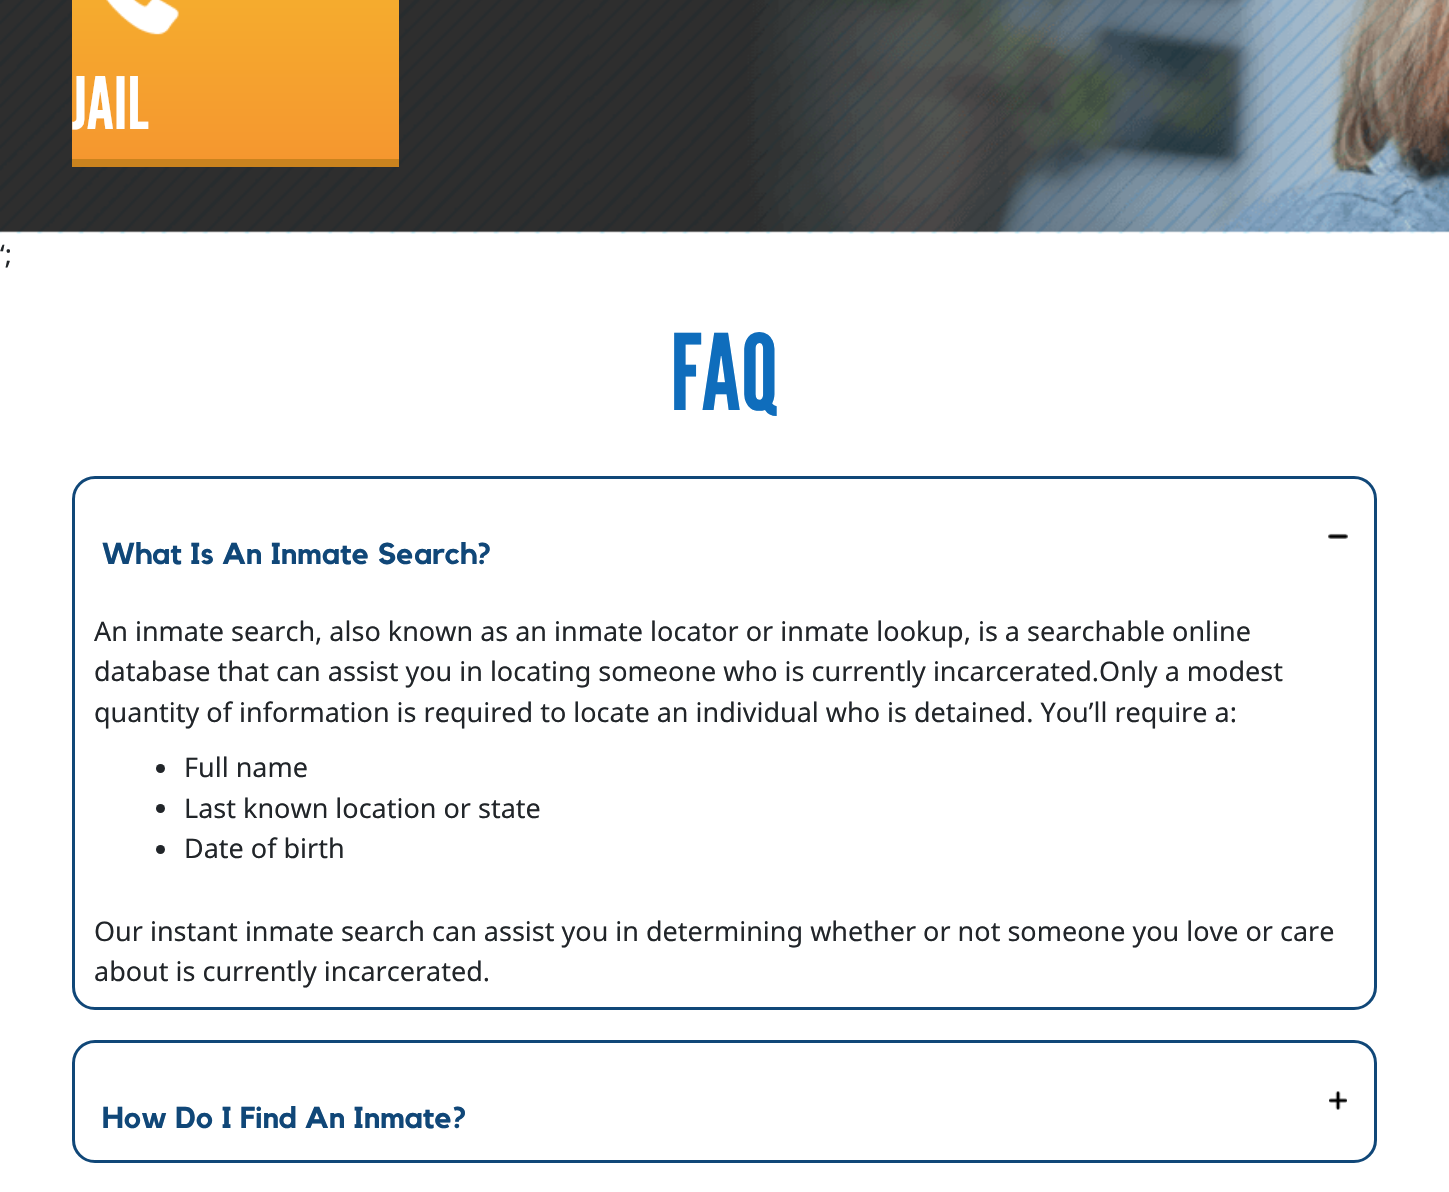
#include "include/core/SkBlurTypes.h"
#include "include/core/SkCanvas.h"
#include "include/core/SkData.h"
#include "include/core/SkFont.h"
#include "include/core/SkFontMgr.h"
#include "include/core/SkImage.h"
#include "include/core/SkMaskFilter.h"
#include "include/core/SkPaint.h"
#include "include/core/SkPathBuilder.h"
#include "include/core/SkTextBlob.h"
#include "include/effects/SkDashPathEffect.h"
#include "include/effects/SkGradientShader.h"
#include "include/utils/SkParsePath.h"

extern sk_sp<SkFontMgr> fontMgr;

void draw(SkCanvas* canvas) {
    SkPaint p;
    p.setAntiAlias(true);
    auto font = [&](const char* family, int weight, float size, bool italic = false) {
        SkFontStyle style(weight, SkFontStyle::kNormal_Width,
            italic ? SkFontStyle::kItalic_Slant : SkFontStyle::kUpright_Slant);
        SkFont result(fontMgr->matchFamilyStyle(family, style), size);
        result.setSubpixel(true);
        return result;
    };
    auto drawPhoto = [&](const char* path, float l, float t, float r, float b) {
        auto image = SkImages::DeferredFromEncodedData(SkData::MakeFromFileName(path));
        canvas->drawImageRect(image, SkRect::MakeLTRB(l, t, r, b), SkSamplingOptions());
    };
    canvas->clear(0xFFFFFFFF);
    drawPhoto("media/1.png", 0, 0, 1449, 234);
    p.setColor(0xFFCA831E);
    canvas->drawRect(SkRect::MakeLTRB(72, 159, 399, 167), p);
    {
        const SkColor colors[] = {0xFFF5972F, 0xFFF5AD2E};
        const float stops[] = {0, 0.73f};
        const SkPoint ends[] = {{236, 159}, {236, -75}};
        p.setShader(SkGradientShader::MakeLinear(ends, colors, stops, 2, SkTileMode::kClamp));
        p.setAlpha(255);
    }
    canvas->drawRect(SkRect::MakeLTRB(72, 0, 399, 159), p);
    drawPhoto("media/2.png", 106, 0, 179, 35);
    auto font1 = font("League Gothic", 400, 72);
    p.setShader(nullptr);
    p.setColor(0xFFFFFFFF);
    canvas->drawString("JAIL", 72, 129, font1, p);
    auto font2 = font("Noto Sans", 400, 27);
    p.setColor(0xFF212529);
    canvas->drawString("‘;", 0, 264, font2, p);
    auto font3 = font("League Gothic", 400, 105);
    p.setColor(0xFF0F6DBC);
    canvas->drawString("FAQ", 670, 410, font3, p);
    p.setStyle(SkPaint::kStroke_Style);
    p.setStrokeWidth(3);
    p.setColor(0xFF104778);
    canvas->drawRoundRect(SkRect::MakeLTRB(73.5f, 477.5f, 1375.5f, 1008.5f), 21.5f, 21.5f, p);
    drawPhoto("media/3.png", 1328, 533, 1348, 539);
    auto font4 = font("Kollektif", 700, 30);
    p.setStyle(SkPaint::kFill_Style);
    canvas->drawString("What Is An Inmate Search?", 102, 564, font4, p);
    p.setColor(0xFF212529);
    {
        const struct { const char* s; float x, y; } items[] = {
            {"An inmate search, also known as an inmate locator or inmate lookup, is a searchable online", 94, 641},
            {"database that can assist you in locating someone who is currently incarcerated.Only a modest", 94, 681},
            {"quantity of information is required to locate an individual who is detained. You’ll require a:", 94, 722},
        };
        for (auto [s, x, y] : items) {
            canvas->drawString(s, x, y, font2, p);
        }
    }
    canvas->drawCircle(160.5f, 768.5f, 4.5f, p);
    canvas->drawString("Full name", 184, 777, font2, p);
    canvas->drawCircle(160.5f, 808.5f, 4.5f, p);
    canvas->drawString("Last known location or state", 184, 818, font2, p);
    canvas->drawCircle(160.5f, 849.5f, 4.5f, p);
    {
        const struct { const char* s; float x, y; } items[] = {
            {"Date of birth", 184, 858},
            {"Our instant inmate search can assist you in determining whether or not someone you love or care", 94, 941},
            {"about is currently incarcerated.", 94, 981},
        };
        for (auto [s, x, y] : items) {
            canvas->drawString(s, x, y, font2, p);
        }
    }
    p.setStyle(SkPaint::kStroke_Style);
    p.setColor(0xFF104778);
    canvas->drawRoundRect(SkRect::MakeLTRB(73.5f, 1041.5f, 1375.5f, 1161.5f), 21.5f, 21.5f, p);
    drawPhoto("media/4.png", 1329, 1091, 1347, 1110);
    p.setStyle(SkPaint::kFill_Style);
    canvas->drawString("How Do I Find An Inmate?", 102, 1128, font4, p);
}
